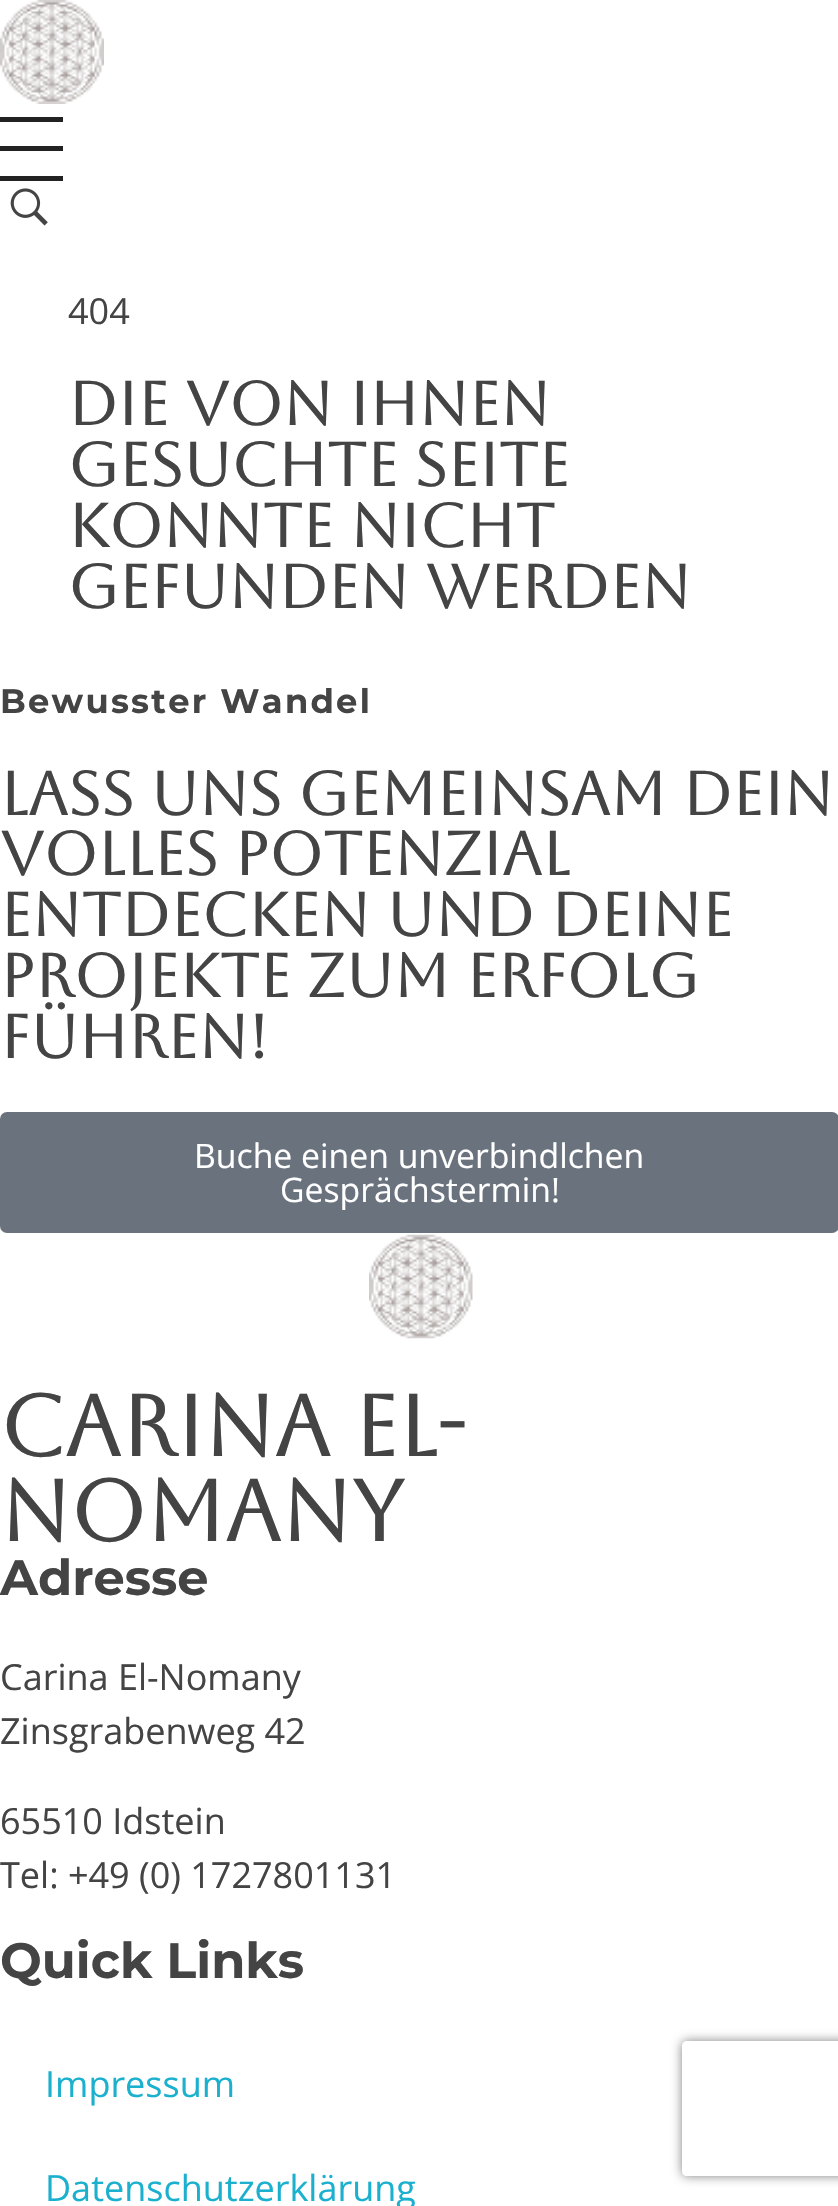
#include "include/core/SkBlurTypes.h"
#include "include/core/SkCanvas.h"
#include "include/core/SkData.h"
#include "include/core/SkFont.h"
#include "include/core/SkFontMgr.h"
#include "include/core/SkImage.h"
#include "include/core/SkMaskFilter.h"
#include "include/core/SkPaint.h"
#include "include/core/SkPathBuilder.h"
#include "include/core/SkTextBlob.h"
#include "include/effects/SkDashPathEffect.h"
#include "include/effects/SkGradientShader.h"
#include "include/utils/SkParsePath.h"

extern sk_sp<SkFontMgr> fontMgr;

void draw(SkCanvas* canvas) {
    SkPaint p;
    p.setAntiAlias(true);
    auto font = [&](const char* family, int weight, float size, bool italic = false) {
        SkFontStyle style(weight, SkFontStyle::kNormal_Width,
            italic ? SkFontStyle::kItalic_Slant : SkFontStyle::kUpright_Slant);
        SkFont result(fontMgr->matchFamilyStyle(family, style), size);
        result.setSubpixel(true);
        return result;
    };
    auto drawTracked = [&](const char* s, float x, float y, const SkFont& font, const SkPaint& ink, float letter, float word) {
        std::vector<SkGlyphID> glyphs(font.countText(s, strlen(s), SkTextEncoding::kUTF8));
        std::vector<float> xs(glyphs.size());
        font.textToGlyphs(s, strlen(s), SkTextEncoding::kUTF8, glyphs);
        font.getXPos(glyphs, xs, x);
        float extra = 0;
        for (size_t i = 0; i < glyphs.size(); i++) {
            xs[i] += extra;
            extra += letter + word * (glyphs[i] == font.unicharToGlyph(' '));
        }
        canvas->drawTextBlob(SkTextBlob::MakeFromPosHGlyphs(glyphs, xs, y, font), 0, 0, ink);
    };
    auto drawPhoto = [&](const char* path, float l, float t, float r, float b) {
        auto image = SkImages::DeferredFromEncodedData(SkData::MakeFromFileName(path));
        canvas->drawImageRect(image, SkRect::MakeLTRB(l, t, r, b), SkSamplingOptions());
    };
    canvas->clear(0xFFFFFFFF);
    drawPhoto("media/1.png", 0, 0, 104, 104);
    {
        const struct { float l, t, r, b; SkColor color; } items[] = {
            {0, 117, 63, 122, 0xFF222222},
            {0, 146, 63, 151, 0xFF222222},
            {0, 176, 63, 181, 0xFF222222},
        };
        for (auto [l, t, r, b, color] : items) {
            p.setColor(color);
            canvas->drawRect(SkRect::MakeLTRB(l, t, r, b), p);
        }
    }
    drawPhoto("media/2.png", 10, 188, 48, 226);
    auto font1 = font("Open Sans", 400, 36);
    p.setColor(0xFF444444);
    canvas->drawString("404", 68, 324, font1, p);
    auto font2 = font("Aboreto", 700, 60.75f);
    {
        const struct { const char* s; float x, y; } items[] = {
            {"Die von Ihnen", 68, 425},
            {"gesuchte Seite", 68, 486},
            {"konnte nicht", 68, 547},
            {"gefunden werden", 68, 608},
        };
        for (auto [s, x, y] : items) {
            canvas->drawString(s, x, y, font2, p);
        }
    }
    auto font3 = font("Montserrat", 700, 33.75f);
    drawTracked("Bewusster Wandel", 0, 713, font3, p, 2.25f, 0);
    {
        const struct { const char* s; float x, y; } items[] = {
            {"Lass uns gemeinsam dein", 0, 815},
            {"volles Potenzial", 0, 875},
            {"entdecken und deine", 0, 936},
            {"Projekte zum Erfolg", 0, 997},
            {"führen!", 0, 1058},
        };
        for (auto [s, x, y] : items) {
            canvas->drawString(s, x, y, font2, p);
        }
    }
    p.setColor(0xFF69727D);
    canvas->drawRoundRect(SkRect::MakeLTRB(0, 1112, 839, 1233), 7, 7, p);
    auto font4 = font("Open Sans", 400, 33.75f);
    p.setColor(0xFFFFFFFF);
    canvas->drawString("Buche einen unverbindlchen", 194, 1168, font4, p);
    canvas->drawString("Gesprächstermin!", 280, 1202, font4, p);
    drawPhoto("media/3.png", 369, 1234, 473, 1339);
    auto font5 = font("Aboreto", 700, 85.5f);
    p.setColor(0xFF444444);
    canvas->drawString("Carina El-", 0, 1456, font5, p);
    canvas->drawString("Nomany", 0, 1541, font5, p);
    auto font6 = font("Montserrat", 700, 49.5f);
    canvas->drawString("Adresse", 0, 1595, font6, p);
    {
        const struct { const char* s; float x, y; } items[] = {
            {"Carina El-Nomany", 0, 1690},
            {"Zinsgrabenweg 42", 0, 1744},
            {"65510 Idstein", 0, 1834},
            {"Tel: +49 (0) 1727801131", 0, 1888},
        };
        for (auto [s, x, y] : items) {
            canvas->drawString(s, x, y, font1, p);
        }
    }
    canvas->drawString("Quick Links", 0, 1978, font6, p);
    p.setColor(0xFF1BB0CE);
    canvas->drawString("Impressum", 45, 2097, font1, p);
    canvas->drawString("Datenschutzerklärung", 45, 2201, font1, p);
    canvas->save();
    canvas->clipPath(SkPathBuilder(SkPathFillType::kEvenOdd).moveTo(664, 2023).lineTo(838, 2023).lineTo(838, 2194).lineTo(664, 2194).close().moveTo(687, 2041).lineTo(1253, 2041).cubicTo(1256, 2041, 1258, 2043, 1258, 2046).lineTo(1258, 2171).cubicTo(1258, 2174, 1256, 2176, 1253, 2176).lineTo(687, 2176).cubicTo(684, 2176, 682, 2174, 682, 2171).lineTo(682, 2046).cubicTo(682, 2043, 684, 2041, 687, 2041).close().detach(), true);
    p.setColor(0xFF808080);
    p.setMaskFilter(SkMaskFilter::MakeBlur(kNormal_SkBlurStyle, 5.5f));
    canvas->drawRoundRect(SkRect::MakeLTRB(682, 2041, 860, 2176), 5, 5, p);
    p.setMaskFilter(nullptr);
    canvas->restore();
}
